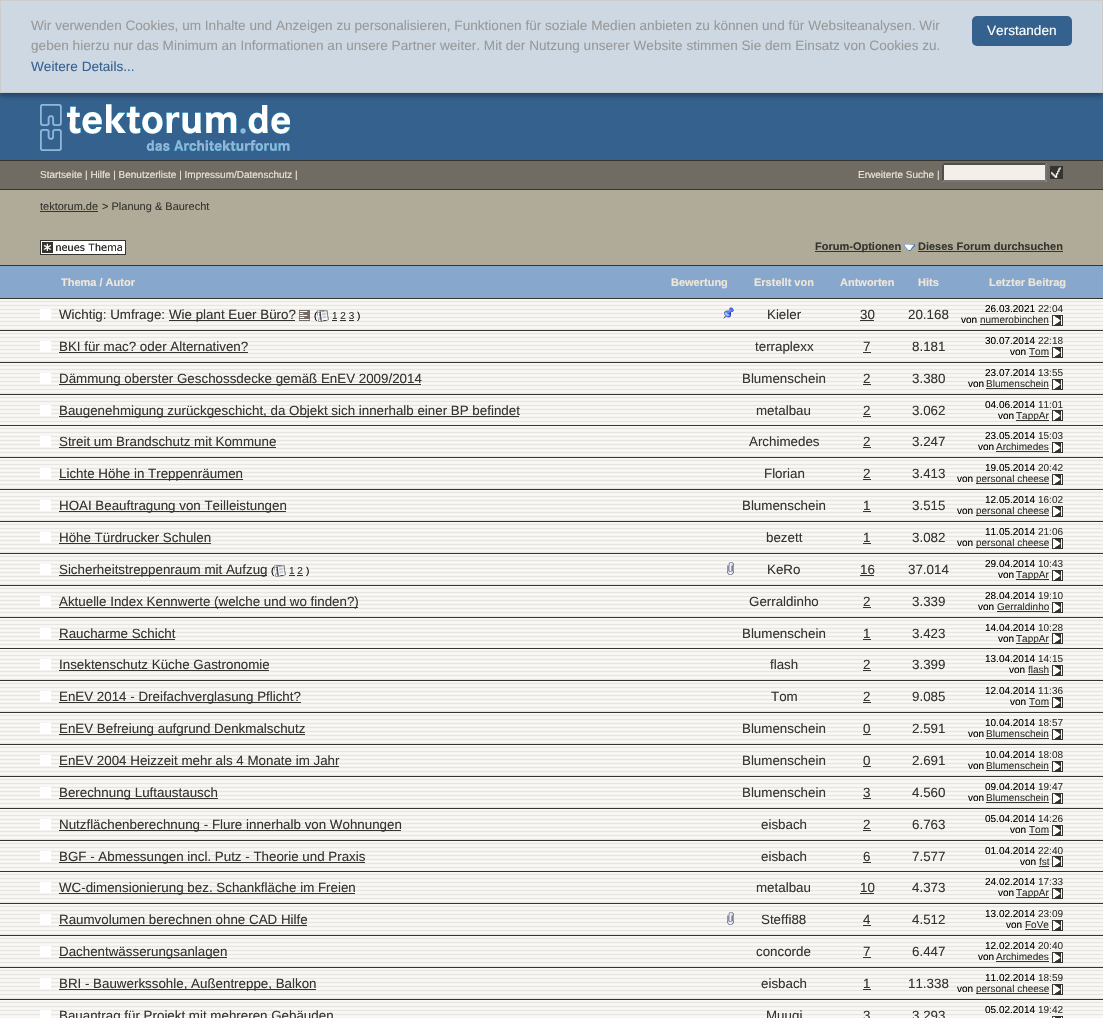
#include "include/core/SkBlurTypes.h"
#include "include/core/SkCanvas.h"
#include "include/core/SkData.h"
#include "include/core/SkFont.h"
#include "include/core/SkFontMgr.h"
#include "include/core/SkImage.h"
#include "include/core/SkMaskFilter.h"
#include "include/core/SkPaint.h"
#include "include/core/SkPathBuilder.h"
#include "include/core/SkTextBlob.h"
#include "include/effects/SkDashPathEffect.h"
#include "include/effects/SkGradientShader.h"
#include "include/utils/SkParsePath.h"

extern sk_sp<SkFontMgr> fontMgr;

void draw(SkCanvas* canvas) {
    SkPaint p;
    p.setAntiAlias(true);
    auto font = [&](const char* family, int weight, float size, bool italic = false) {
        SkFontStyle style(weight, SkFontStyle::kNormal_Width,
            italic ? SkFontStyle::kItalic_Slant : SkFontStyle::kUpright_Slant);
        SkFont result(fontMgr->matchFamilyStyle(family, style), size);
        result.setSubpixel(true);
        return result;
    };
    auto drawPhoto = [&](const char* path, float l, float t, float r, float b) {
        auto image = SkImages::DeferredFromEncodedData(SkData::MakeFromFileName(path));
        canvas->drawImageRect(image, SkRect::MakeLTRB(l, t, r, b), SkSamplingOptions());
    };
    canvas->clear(0xFF35618E);
    drawPhoto("media/1.png", 40, 104, 290, 151);
    p.setColor(0x4D000000);
    p.setMaskFilter(SkMaskFilter::MakeBlur(kNormal_SkBlurStyle, 2.5f));
    canvas->drawRect(SkRect::MakeLTRB(0, 3, 1103, 96), p);
    p.setMaskFilter(nullptr);
    p.setColor(0xFFCDD8E3);
    canvas->drawRect(SkRect::MakeLTRB(0.5f, 0.5f, 1102.5f, 92.5f), p);
    p.setStyle(SkPaint::kStroke_Style);
    p.setStrokeWidth(1);
    p.setColor(0xFFCCCCCC);
    canvas->drawRect(SkRect::MakeLTRB(0.5f, 0.5f, 1102.5f, 92.5f), p);
    auto font1 = font("Liberation Sans", 400, 13.6f);
    p.setStyle(SkPaint::kFill_Style);
    p.setColor(0xFF999999);
    canvas->drawString("Wir verwenden Cookies, um Inhalte und Anzeigen zu personalisieren, Funktionen für soziale Medien anbieten zu können und für Websiteanalysen. Wir", 31, 30, font1, p);
    canvas->drawString("geben hierzu nur das Minimum an Informationen an unsere Partner weiter. Mit der Nutzung unserer Website stimmen Sie dem Einsatz von Cookies zu.", 31, 50, font1, p);
    p.setColor(0xFF35618E);
    canvas->drawString("Weitere Details...", 31, 71, font1, p);
    canvas->drawRoundRect(SkRect::MakeLTRB(972, 16, 1072, 46), 5, 5, p);
    p.setColor(0xFFFFFFFF);
    canvas->drawString("Verstanden", 987, 35, font1, p);
    drawPhoto("media/2.png", 0, 1017, 1103, 1018);
    {
        const struct { float l, t, r, b; SkColor color; } items[] = {
            {0, 161, 1103, 189, 0xFF706B63},
            {0, 160, 1103, 161, 0xFF35342F},
            {0, 189, 1103, 190, 0xFF35342F},
        };
        for (auto [l, t, r, b, color] : items) {
            p.setColor(color);
            canvas->drawRect(SkRect::MakeLTRB(l, t, r, b), p);
        }
    }
    auto font2 = font("Liberation Sans", 400, 10);
    p.setColor(0xFFEFE6D8);
    canvas->drawString("Startseite | Hilfe | Benutzerliste | Impressum/Datenschutz |", 40, 178, font2, p);
    canvas->drawString("Erweiterte Suche |", 858, 178, font2, p);
    p.setColor(0xFFF4F0E9);
    canvas->drawRect(SkRect::MakeLTRB(942, 163, 1047, 182), p);
    p.setColor(0xFF4F4F4F);
    canvas->drawPath(SkPathBuilder().moveTo(942, 163).lineTo(1047, 163).lineTo(1045, 165).lineTo(944, 165).close().detach(), p);
    p.setColor(0xFF767676);
    canvas->drawPath(SkPathBuilder().moveTo(1047, 163).lineTo(1047, 182).lineTo(1045, 180).lineTo(1045, 165).close().detach(), p);
    canvas->drawPath(SkPathBuilder().moveTo(1047, 182).lineTo(942, 182).lineTo(944, 180).lineTo(1045, 180).close().detach(), p);
    p.setColor(0xFF4F4F4F);
    canvas->drawPath(SkPathBuilder().moveTo(942, 182).lineTo(942, 163).lineTo(944, 165).lineTo(944, 180).close().detach(), p);
    drawPhoto("media/3.png", 1050, 166, 1063, 179);
    p.setColor(0xFFAFAB98);
    canvas->drawRect(SkRect::MakeLTRB(0, 190, 1103, 265), p);
    p.setColor(0xFF35342F);
    canvas->drawRect(SkRect::MakeLTRB(0, 265, 1103, 266), p);
    auto font3 = font("Liberation Sans", 400, 11);
    canvas->drawString("tektorum.de", 40, 210, font3, p);
    canvas->drawRect(SkRect::MakeLTRB(40, 211, 98, 212), p);
    canvas->drawString("> Planung & Baurecht", 102, 210, font3, p);
    drawPhoto("media/4.png", 40, 240, 126, 255);
    canvas->drawRect(SkRect::MakeLTRB(815, 251, 901, 252), p);
    auto font4 = font("Liberation Sans", 700, 11);
    canvas->drawString("Forum-Optionen", 815, 250, font4, p);
    drawPhoto("media/5.png", 904, 244, 915, 251);
    canvas->drawString("Dieses Forum durchsuchen", 918, 250, font4, p);
    canvas->drawRect(SkRect::MakeLTRB(918, 251, 1063, 252), p);
    drawPhoto("media/6.png", 0, 426, 1103, 648);
    p.setColor(0xFF87A8CC);
    canvas->drawRect(SkRect::MakeLTRB(0, 266, 1103, 298), p);
    p.setColor(0xFF35342F);
    canvas->drawRect(SkRect::MakeLTRB(0, 298, 1103, 299), p);
    p.setColor(0xFFEFE6D8);
    {
        const struct { const char* s; float x, y; } items[] = {
            {"Thema / Autor", 61, 286},
            {"Bewertung", 671, 286},
            {"Erstellt von", 754, 286},
            {"Antworten", 840, 286},
            {"Hits", 918, 286},
            {"Letzter Beitrag", 989, 286},
        };
        for (auto [s, x, y] : items) {
            canvas->drawString(s, x, y, font4, p);
        }
    }
    drawPhoto("media/7.png", 0, 299, 55, 330);
    p.setColor(0xFF35342F);
    canvas->drawRect(SkRect::MakeLTRB(0, 330, 1103, 331), p);
    p.setColor(0xFFFFFFFF);
    canvas->drawRect(SkRect::MakeLTRB(40, 309, 51, 320), p);
    drawPhoto("media/8.png", 55, 299, 738, 330);
    auto font5 = font("Liberation Sans", 400, 13.35f);
    p.setColor(0xFF35342F);
    canvas->drawString("Wichtig: Umfrage:", 59, 319, font5, p);
    canvas->drawRect(SkRect::MakeLTRB(169, 320, 295, 321), p);
    canvas->drawString("Wie plant Euer Büro?", 169, 319, font5, p);
    drawPhoto("media/9.png", 299, 310, 310, 321);
    p.setColor(0xFF000000);
    canvas->drawString("(", 314, 319, font2, p);
    drawPhoto("media/10.png", 317, 310, 329, 322);
    p.setColor(0xFF35342F);
    canvas->drawString("1 2 3", 332, 319, font2, p);
    {
        const struct { float l, t, r, b; SkColor color; } items[] = {
            {332, 320, 337, 321, 0xFF35342F},
            {340, 320, 346, 321, 0xFF35342F},
            {349, 320, 354, 321, 0xFF35342F},
        };
        for (auto [l, t, r, b, color] : items) {
            p.setColor(color);
            canvas->drawRect(SkRect::MakeLTRB(l, t, r, b), p);
        }
    }
    p.setColor(0xFF000000);
    canvas->drawString(")", 357, 319, font2, p);
    drawPhoto("media/11.png", 723, 307, 734, 319);
    drawPhoto("media/12.png", 738, 299, 830, 330);
    p.setColor(0xFF35342F);
    canvas->drawString("Kieler", 767, 319, font5, p);
    drawPhoto("media/13.png", 830, 299, 904, 330);
    canvas->drawString("30", 860, 319, font5, p);
    canvas->drawRect(SkRect::MakeLTRB(860, 320, 874, 321), p);
    drawPhoto("media/14.png", 904, 299, 953, 330);
    canvas->drawString("20.168", 908, 319, font5, p);
    drawPhoto("media/15.png", 953, 299, 1103, 330);
    p.setColor(0xFF000000);
    canvas->drawString("26.03.2021", 985, 312, font2, p);
    p.setColor(0xFF35342F);
    canvas->drawString("22:04", 1038, 312, font2, p);
    p.setColor(0xFF000000);
    canvas->drawString("von", 961, 323, font2, p);
    p.setColor(0xFF35342F);
    canvas->drawString("numerobinchen", 980, 323, font2, p);
    canvas->drawRect(SkRect::MakeLTRB(980, 324, 1049, 325), p);
    drawPhoto("media/16.png", 1052, 315, 1063, 326);
    drawPhoto("media/7.png", 0, 331, 55, 362);
    canvas->drawRect(SkRect::MakeLTRB(0, 362, 1103, 363), p);
    p.setColor(0xFFFFFFFF);
    canvas->drawRect(SkRect::MakeLTRB(40, 341, 51, 352), p);
    drawPhoto("media/8.png", 55, 331, 738, 362);
    p.setColor(0xFF35342F);
    canvas->drawString("BKI für mac? oder Alternativen?", 59, 351, font5, p);
    canvas->drawRect(SkRect::MakeLTRB(59, 352, 248, 353), p);
    drawPhoto("media/12.png", 738, 331, 830, 362);
    canvas->drawString("terraplexx", 755, 351, font5, p);
    drawPhoto("media/13.png", 830, 331, 904, 362);
    canvas->drawString("7", 863, 351, font5, p);
    canvas->drawRect(SkRect::MakeLTRB(863, 352, 871, 353), p);
    drawPhoto("media/14.png", 904, 331, 953, 362);
    canvas->drawString("8.181", 912, 351, font5, p);
    drawPhoto("media/15.png", 953, 331, 1103, 362);
    p.setColor(0xFF000000);
    canvas->drawString("30.07.2014", 985, 344, font2, p);
    p.setColor(0xFF35342F);
    canvas->drawString("22:18", 1038, 344, font2, p);
    p.setColor(0xFF000000);
    canvas->drawString("von", 1010, 355, font2, p);
    p.setColor(0xFF35342F);
    canvas->drawString("Tom", 1029, 355, font2, p);
    canvas->drawRect(SkRect::MakeLTRB(1029, 356, 1049, 357), p);
    drawPhoto("media/16.png", 1052, 347, 1063, 358);
    drawPhoto("media/7.png", 0, 363, 55, 394);
    canvas->drawRect(SkRect::MakeLTRB(0, 394, 1103, 395), p);
    p.setColor(0xFFFFFFFF);
    canvas->drawRect(SkRect::MakeLTRB(40, 373, 51, 384), p);
    drawPhoto("media/8.png", 55, 363, 738, 394);
    p.setColor(0xFF35342F);
    canvas->drawRect(SkRect::MakeLTRB(59, 384, 421, 385), p);
    canvas->drawString("Dämmung oberster Geschossdecke gemäß EnEV 2009/2014", 59, 383, font5, p);
    drawPhoto("media/12.png", 738, 363, 830, 394);
    canvas->drawString("Blumenschein", 742, 383, font5, p);
    drawPhoto("media/13.png", 830, 363, 904, 394);
    canvas->drawString("2", 863, 383, font5, p);
    canvas->drawRect(SkRect::MakeLTRB(863, 384, 871, 385), p);
    drawPhoto("media/14.png", 904, 363, 953, 394);
    canvas->drawString("3.380", 912, 383, font5, p);
    drawPhoto("media/15.png", 953, 363, 1103, 394);
    p.setColor(0xFF000000);
    canvas->drawString("23.07.2014", 985, 376, font2, p);
    p.setColor(0xFF35342F);
    canvas->drawString("13:55", 1038, 376, font2, p);
    p.setColor(0xFF000000);
    canvas->drawString("von", 968, 387, font2, p);
    p.setColor(0xFF35342F);
    canvas->drawString("Blumenschein", 986, 387, font2, p);
    canvas->drawRect(SkRect::MakeLTRB(986, 388, 1049, 389), p);
    drawPhoto("media/16.png", 1052, 379, 1063, 390);
    drawPhoto("media/17.png", 0, 395, 55, 425);
    canvas->drawRect(SkRect::MakeLTRB(0, 425, 1103, 426), p);
    p.setColor(0xFFFFFFFF);
    canvas->drawRect(SkRect::MakeLTRB(40, 405, 51, 416), p);
    drawPhoto("media/18.png", 55, 395, 738, 425);
    p.setColor(0xFF35342F);
    canvas->drawRect(SkRect::MakeLTRB(59, 416, 519, 417), p);
    canvas->drawString("Baugenehmigung zurückgeschicht, da Objekt sich innerhalb einer BP befindet", 59, 415, font5, p);
    drawPhoto("media/19.png", 738, 395, 830, 425);
    canvas->drawString("metalbau", 756, 415, font5, p);
    drawPhoto("media/20.png", 830, 395, 904, 425);
    canvas->drawString("2", 863, 415, font5, p);
    canvas->drawRect(SkRect::MakeLTRB(863, 416, 871, 417), p);
    drawPhoto("media/21.png", 904, 395, 953, 425);
    canvas->drawString("3.062", 912, 415, font5, p);
    drawPhoto("media/22.png", 953, 395, 1103, 425);
    p.setColor(0xFF000000);
    canvas->drawString("04.06.2014", 985, 408, font2, p);
    p.setColor(0xFF35342F);
    canvas->drawString("11:01", 1038, 408, font2, p);
    p.setColor(0xFF000000);
    canvas->drawString("von", 998, 419, font2, p);
    p.setColor(0xFF35342F);
    canvas->drawRect(SkRect::MakeLTRB(1016, 420, 1049, 421), p);
    canvas->drawString("TappAr", 1016, 419, font2, p);
    drawPhoto("media/16.png", 1052, 410, 1063, 421);
    p.setColor(0xFF000000);
    canvas->drawString("23.05.2014", 985, 439, font2, p);
    p.setColor(0xFF35342F);
    canvas->drawString("15:03", 1038, 439, font2, p);
    p.setColor(0xFF000000);
    canvas->drawString("von", 978, 450, font2, p);
    p.setColor(0xFF35342F);
    canvas->drawString("Archimedes", 996, 450, font2, p);
    canvas->drawRect(SkRect::MakeLTRB(996, 451, 1049, 452), p);
    drawPhoto("media/16.png", 1052, 442, 1063, 453);
    canvas->drawRect(SkRect::MakeLTRB(0, 457, 1103, 458), p);
    p.setColor(0xFFFFFFFF);
    canvas->drawRect(SkRect::MakeLTRB(40, 436, 51, 447), p);
    p.setColor(0xFF35342F);
    canvas->drawString("Streit um Brandschutz mit Kommune", 59, 446, font5, p);
    canvas->drawRect(SkRect::MakeLTRB(59, 447, 276, 448), p);
    canvas->drawString("Archimedes", 749, 446, font5, p);
    canvas->drawString("2", 863, 446, font5, p);
    canvas->drawRect(SkRect::MakeLTRB(863, 447, 871, 448), p);
    canvas->drawString("3.247", 912, 446, font5, p);
    p.setColor(0xFF000000);
    canvas->drawString("19.05.2014", 985, 471, font2, p);
    p.setColor(0xFF35342F);
    canvas->drawString("20:42", 1038, 471, font2, p);
    p.setColor(0xFF000000);
    canvas->drawString("von", 957, 482, font2, p);
    p.setColor(0xFF35342F);
    canvas->drawRect(SkRect::MakeLTRB(976, 483, 1049, 484), p);
    canvas->drawString("personal cheese", 976, 482, font2, p);
    drawPhoto("media/16.png", 1052, 474, 1063, 485);
    {
        const struct { float l, t, r, b; SkColor color; } items[] = {
            {0, 489, 1103, 490, 0xFF35342F},
            {40, 468, 51, 479, 0xFFFFFFFF},
            {59, 479, 243, 480, 0xFF35342F},
        };
        for (auto [l, t, r, b, color] : items) {
            p.setColor(color);
            canvas->drawRect(SkRect::MakeLTRB(l, t, r, b), p);
        }
    }
    {
        const struct { const char* s; float x, y; } items[] = {
            {"Lichte Höhe in Treppenräumen", 59, 478},
            {"Florian", 764, 478},
            {"2", 863, 478},
        };
        for (auto [s, x, y] : items) {
            canvas->drawString(s, x, y, font5, p);
        }
    }
    canvas->drawRect(SkRect::MakeLTRB(863, 479, 871, 480), p);
    canvas->drawString("3.413", 912, 478, font5, p);
    p.setColor(0xFF000000);
    canvas->drawString("12.05.2014", 985, 503, font2, p);
    p.setColor(0xFF35342F);
    canvas->drawString("16:02", 1038, 503, font2, p);
    p.setColor(0xFF000000);
    canvas->drawString("von", 957, 514, font2, p);
    p.setColor(0xFF35342F);
    canvas->drawRect(SkRect::MakeLTRB(976, 515, 1049, 516), p);
    canvas->drawString("personal cheese", 976, 514, font2, p);
    drawPhoto("media/16.png", 1052, 506, 1063, 517);
    {
        const struct { float l, t, r, b; SkColor color; } items[] = {
            {0, 521, 1103, 522, 0xFF35342F},
            {40, 500, 51, 511, 0xFFFFFFFF},
            {59, 511, 286, 512, 0xFF35342F},
        };
        for (auto [l, t, r, b, color] : items) {
            p.setColor(color);
            canvas->drawRect(SkRect::MakeLTRB(l, t, r, b), p);
        }
    }
    {
        const struct { const char* s; float x, y; } items[] = {
            {"HOAI Beauftragung von Teilleistungen", 59, 510},
            {"Blumenschein", 742, 510},
            {"1", 863, 510},
        };
        for (auto [s, x, y] : items) {
            canvas->drawString(s, x, y, font5, p);
        }
    }
    canvas->drawRect(SkRect::MakeLTRB(863, 511, 871, 512), p);
    canvas->drawString("3.515", 912, 510, font5, p);
    p.setColor(0xFF000000);
    canvas->drawString("11.05.2014", 985, 535, font2, p);
    p.setColor(0xFF35342F);
    canvas->drawString("21:06", 1038, 535, font2, p);
    p.setColor(0xFF000000);
    canvas->drawString("von", 957, 546, font2, p);
    p.setColor(0xFF35342F);
    canvas->drawRect(SkRect::MakeLTRB(976, 547, 1049, 548), p);
    canvas->drawString("personal cheese", 976, 546, font2, p);
    drawPhoto("media/16.png", 1052, 538, 1063, 549);
    canvas->drawRect(SkRect::MakeLTRB(0, 553, 1103, 554), p);
    p.setColor(0xFFFFFFFF);
    canvas->drawRect(SkRect::MakeLTRB(40, 532, 51, 543), p);
    p.setColor(0xFF35342F);
    canvas->drawString("Höhe Türdrucker Schulen", 59, 542, font5, p);
    canvas->drawRect(SkRect::MakeLTRB(59, 543, 211, 544), p);
    canvas->drawString("bezett", 766, 542, font5, p);
    canvas->drawString("1", 863, 542, font5, p);
    canvas->drawRect(SkRect::MakeLTRB(863, 543, 871, 544), p);
    canvas->drawString("3.082", 912, 542, font5, p);
    p.setColor(0xFF000000);
    canvas->drawString("29.04.2014", 985, 567, font2, p);
    p.setColor(0xFF35342F);
    canvas->drawString("10:43", 1038, 567, font2, p);
    p.setColor(0xFF000000);
    canvas->drawString("von", 998, 578, font2, p);
    p.setColor(0xFF35342F);
    canvas->drawRect(SkRect::MakeLTRB(1016, 579, 1049, 580), p);
    canvas->drawString("TappAr", 1016, 578, font2, p);
    drawPhoto("media/16.png", 1052, 570, 1063, 581);
    {
        const struct { float l, t, r, b; SkColor color; } items[] = {
            {0, 585, 1103, 586, 0xFF35342F},
            {40, 564, 51, 575, 0xFFFFFFFF},
            {59, 575, 267, 576, 0xFF35342F},
        };
        for (auto [l, t, r, b, color] : items) {
            p.setColor(color);
            canvas->drawRect(SkRect::MakeLTRB(l, t, r, b), p);
        }
    }
    canvas->drawString("Sicherheitstreppenraum mit Aufzug", 59, 574, font5, p);
    p.setColor(0xFF000000);
    canvas->drawString("(", 271, 574, font2, p);
    drawPhoto("media/23.png", 274, 565, 286, 577);
    p.setColor(0xFF35342F);
    canvas->drawString("1 2", 289, 574, font2, p);
    canvas->drawRect(SkRect::MakeLTRB(289, 575, 295, 576), p);
    canvas->drawRect(SkRect::MakeLTRB(297, 575, 303, 576), p);
    p.setColor(0xFF000000);
    canvas->drawString(")", 306, 574, font2, p);
    drawPhoto("media/24.png", 727, 562, 734, 575);
    p.setColor(0xFF35342F);
    canvas->drawString("KeRo", 767, 574, font5, p);
    canvas->drawString("16", 860, 574, font5, p);
    canvas->drawRect(SkRect::MakeLTRB(860, 575, 874, 576), p);
    canvas->drawString("37.014", 908, 574, font5, p);
    p.setColor(0xFF000000);
    canvas->drawString("28.04.2014", 985, 599, font2, p);
    p.setColor(0xFF35342F);
    canvas->drawString("19:10", 1038, 599, font2, p);
    p.setColor(0xFF000000);
    canvas->drawString("von", 978, 610, font2, p);
    p.setColor(0xFF35342F);
    canvas->drawString("Gerraldinho", 997, 610, font2, p);
    canvas->drawRect(SkRect::MakeLTRB(997, 611, 1049, 612), p);
    drawPhoto("media/16.png", 1052, 602, 1063, 613);
    {
        const struct { float l, t, r, b; SkColor color; } items[] = {
            {0, 617, 1103, 618, 0xFF35342F},
            {40, 596, 51, 607, 0xFFFFFFFF},
            {59, 607, 358, 608, 0xFF35342F},
        };
        for (auto [l, t, r, b, color] : items) {
            p.setColor(color);
            canvas->drawRect(SkRect::MakeLTRB(l, t, r, b), p);
        }
    }
    {
        const struct { const char* s; float x, y; } items[] = {
            {"Aktuelle Index Kennwerte (welche und wo finden?)", 59, 606},
            {"Gerraldinho", 749, 606},
            {"2", 863, 606},
        };
        for (auto [s, x, y] : items) {
            canvas->drawString(s, x, y, font5, p);
        }
    }
    canvas->drawRect(SkRect::MakeLTRB(863, 607, 871, 608), p);
    canvas->drawString("3.339", 912, 606, font5, p);
    p.setColor(0xFF000000);
    canvas->drawString("14.04.2014", 985, 631, font2, p);
    p.setColor(0xFF35342F);
    canvas->drawString("10:28", 1038, 631, font2, p);
    p.setColor(0xFF000000);
    canvas->drawString("von", 998, 642, font2, p);
    p.setColor(0xFF35342F);
    canvas->drawRect(SkRect::MakeLTRB(1016, 643, 1049, 644), p);
    canvas->drawString("TappAr", 1016, 642, font2, p);
    drawPhoto("media/16.png", 1052, 633, 1063, 644);
    canvas->drawRect(SkRect::MakeLTRB(0, 648, 1103, 649), p);
    p.setColor(0xFFFFFFFF);
    canvas->drawRect(SkRect::MakeLTRB(40, 628, 51, 639), p);
    p.setColor(0xFF35342F);
    canvas->drawString("Raucharme Schicht", 59, 638, font5, p);
    canvas->drawRect(SkRect::MakeLTRB(59, 639, 175, 640), p);
    canvas->drawString("Blumenschein", 742, 638, font5, p);
    canvas->drawString("1", 863, 638, font5, p);
    canvas->drawRect(SkRect::MakeLTRB(863, 639, 871, 640), p);
    canvas->drawString("3.423", 912, 638, font5, p);
    drawPhoto("media/7.png", 0, 649, 55, 680);
    canvas->drawRect(SkRect::MakeLTRB(0, 680, 1103, 681), p);
    p.setColor(0xFFFFFFFF);
    canvas->drawRect(SkRect::MakeLTRB(40, 659, 51, 670), p);
    drawPhoto("media/8.png", 55, 649, 738, 680);
    p.setColor(0xFF35342F);
    canvas->drawString("Insektenschutz Küche Gastronomie", 59, 669, font5, p);
    canvas->drawRect(SkRect::MakeLTRB(59, 670, 269, 671), p);
    drawPhoto("media/12.png", 738, 649, 830, 680);
    canvas->drawString("flash", 770, 669, font5, p);
    drawPhoto("media/13.png", 830, 649, 904, 680);
    canvas->drawString("2", 863, 669, font5, p);
    canvas->drawRect(SkRect::MakeLTRB(863, 670, 871, 671), p);
    drawPhoto("media/14.png", 904, 649, 953, 680);
    canvas->drawString("3.399", 912, 669, font5, p);
    drawPhoto("media/15.png", 953, 649, 1103, 680);
    p.setColor(0xFF000000);
    canvas->drawString("13.04.2014", 985, 662, font2, p);
    p.setColor(0xFF35342F);
    canvas->drawString("14:15", 1038, 662, font2, p);
    p.setColor(0xFF000000);
    canvas->drawString("von", 1009, 673, font2, p);
    p.setColor(0xFF35342F);
    canvas->drawString("flash", 1028, 673, font2, p);
    canvas->drawRect(SkRect::MakeLTRB(1028, 674, 1049, 675), p);
    drawPhoto("media/16.png", 1052, 665, 1063, 676);
    drawPhoto("media/7.png", 0, 681, 55, 712);
    canvas->drawRect(SkRect::MakeLTRB(0, 712, 1103, 713), p);
    p.setColor(0xFFFFFFFF);
    canvas->drawRect(SkRect::MakeLTRB(40, 691, 51, 702), p);
    drawPhoto("media/8.png", 55, 681, 738, 712);
    p.setColor(0xFF35342F);
    canvas->drawRect(SkRect::MakeLTRB(59, 702, 301, 703), p);
    canvas->drawString("EnEV 2014 - Dreifachverglasung Pflicht?", 59, 701, font5, p);
    drawPhoto("media/12.png", 738, 681, 830, 712);
    canvas->drawString("Tom", 771, 701, font5, p);
    drawPhoto("media/13.png", 830, 681, 904, 712);
    canvas->drawString("2", 863, 701, font5, p);
    canvas->drawRect(SkRect::MakeLTRB(863, 702, 871, 703), p);
    drawPhoto("media/14.png", 904, 681, 953, 712);
    canvas->drawString("9.085", 912, 701, font5, p);
    drawPhoto("media/15.png", 953, 681, 1103, 712);
    p.setColor(0xFF000000);
    canvas->drawString("12.04.2014", 985, 694, font2, p);
    p.setColor(0xFF35342F);
    canvas->drawString("11:36", 1038, 694, font2, p);
    p.setColor(0xFF000000);
    canvas->drawString("von", 1010, 705, font2, p);
    p.setColor(0xFF35342F);
    canvas->drawString("Tom", 1029, 705, font2, p);
    canvas->drawRect(SkRect::MakeLTRB(1029, 706, 1049, 707), p);
    drawPhoto("media/16.png", 1052, 697, 1063, 708);
    drawPhoto("media/7.png", 0, 713, 55, 744);
    canvas->drawRect(SkRect::MakeLTRB(0, 744, 1103, 745), p);
    p.setColor(0xFFFFFFFF);
    canvas->drawRect(SkRect::MakeLTRB(40, 723, 51, 734), p);
    drawPhoto("media/8.png", 55, 713, 738, 744);
    p.setColor(0xFF35342F);
    canvas->drawRect(SkRect::MakeLTRB(59, 734, 305, 735), p);
    canvas->drawString("EnEV Befreiung aufgrund Denkmalschutz", 59, 733, font5, p);
    drawPhoto("media/12.png", 738, 713, 830, 744);
    canvas->drawString("Blumenschein", 742, 733, font5, p);
    drawPhoto("media/13.png", 830, 713, 904, 744);
    canvas->drawString("0", 863, 733, font5, p);
    canvas->drawRect(SkRect::MakeLTRB(863, 734, 871, 735), p);
    drawPhoto("media/14.png", 904, 713, 953, 744);
    canvas->drawString("2.591", 912, 733, font5, p);
    drawPhoto("media/15.png", 953, 713, 1103, 744);
    p.setColor(0xFF000000);
    canvas->drawString("10.04.2014", 985, 726, font2, p);
    p.setColor(0xFF35342F);
    canvas->drawString("18:57", 1038, 726, font2, p);
    p.setColor(0xFF000000);
    canvas->drawString("von", 968, 737, font2, p);
    p.setColor(0xFF35342F);
    canvas->drawString("Blumenschein", 986, 737, font2, p);
    canvas->drawRect(SkRect::MakeLTRB(986, 738, 1049, 739), p);
    drawPhoto("media/16.png", 1052, 729, 1063, 740);
    drawPhoto("media/7.png", 0, 745, 55, 776);
    canvas->drawRect(SkRect::MakeLTRB(0, 776, 1103, 777), p);
    p.setColor(0xFFFFFFFF);
    canvas->drawRect(SkRect::MakeLTRB(40, 755, 51, 766), p);
    drawPhoto("media/8.png", 55, 745, 738, 776);
    p.setColor(0xFF35342F);
    canvas->drawString("EnEV 2004 Heizzeit mehr als 4 Monate im Jahr", 59, 765, font5, p);
    canvas->drawRect(SkRect::MakeLTRB(59, 766, 339, 767), p);
    drawPhoto("media/12.png", 738, 745, 830, 776);
    canvas->drawString("Blumenschein", 742, 765, font5, p);
    drawPhoto("media/13.png", 830, 745, 904, 776);
    canvas->drawString("0", 863, 765, font5, p);
    canvas->drawRect(SkRect::MakeLTRB(863, 766, 871, 767), p);
    drawPhoto("media/14.png", 904, 745, 953, 776);
    canvas->drawString("2.691", 912, 765, font5, p);
    drawPhoto("media/15.png", 953, 745, 1103, 776);
    p.setColor(0xFF000000);
    canvas->drawString("10.04.2014", 985, 758, font2, p);
    p.setColor(0xFF35342F);
    canvas->drawString("18:08", 1038, 758, font2, p);
    p.setColor(0xFF000000);
    canvas->drawString("von", 968, 769, font2, p);
    p.setColor(0xFF35342F);
    canvas->drawString("Blumenschein", 986, 769, font2, p);
    canvas->drawRect(SkRect::MakeLTRB(986, 770, 1049, 771), p);
    drawPhoto("media/16.png", 1052, 761, 1063, 772);
    drawPhoto("media/7.png", 0, 777, 55, 808);
    canvas->drawRect(SkRect::MakeLTRB(0, 808, 1103, 809), p);
    p.setColor(0xFFFFFFFF);
    canvas->drawRect(SkRect::MakeLTRB(40, 787, 51, 798), p);
    drawPhoto("media/8.png", 55, 777, 738, 808);
    p.setColor(0xFF35342F);
    canvas->drawRect(SkRect::MakeLTRB(59, 798, 218, 799), p);
    canvas->drawString("Berechnung Luftaustausch", 59, 797, font5, p);
    drawPhoto("media/12.png", 738, 777, 830, 808);
    canvas->drawString("Blumenschein", 742, 797, font5, p);
    drawPhoto("media/13.png", 830, 777, 904, 808);
    canvas->drawString("3", 863, 797, font5, p);
    canvas->drawRect(SkRect::MakeLTRB(863, 798, 871, 799), p);
    drawPhoto("media/14.png", 904, 777, 953, 808);
    canvas->drawString("4.560", 912, 797, font5, p);
    drawPhoto("media/15.png", 953, 777, 1103, 808);
    p.setColor(0xFF000000);
    canvas->drawString("09.04.2014", 985, 790, font2, p);
    p.setColor(0xFF35342F);
    canvas->drawString("19:47", 1038, 790, font2, p);
    p.setColor(0xFF000000);
    canvas->drawString("von", 968, 801, font2, p);
    p.setColor(0xFF35342F);
    canvas->drawString("Blumenschein", 986, 801, font2, p);
    canvas->drawRect(SkRect::MakeLTRB(986, 802, 1049, 803), p);
    drawPhoto("media/16.png", 1052, 793, 1063, 804);
    drawPhoto("media/7.png", 0, 809, 55, 840);
    canvas->drawRect(SkRect::MakeLTRB(0, 840, 1103, 841), p);
    p.setColor(0xFFFFFFFF);
    canvas->drawRect(SkRect::MakeLTRB(40, 819, 51, 830), p);
    drawPhoto("media/8.png", 55, 809, 738, 840);
    p.setColor(0xFF35342F);
    canvas->drawRect(SkRect::MakeLTRB(59, 830, 401, 831), p);
    canvas->drawString("Nutzflächenberechnung - Flure innerhalb von Wohnungen", 59, 829, font5, p);
    drawPhoto("media/12.png", 738, 809, 830, 840);
    canvas->drawString("eisbach", 761, 829, font5, p);
    drawPhoto("media/13.png", 830, 809, 904, 840);
    canvas->drawString("2", 863, 829, font5, p);
    canvas->drawRect(SkRect::MakeLTRB(863, 830, 871, 831), p);
    drawPhoto("media/14.png", 904, 809, 953, 840);
    canvas->drawString("6.763", 912, 829, font5, p);
    drawPhoto("media/15.png", 953, 809, 1103, 840);
    p.setColor(0xFF000000);
    canvas->drawString("05.04.2014", 985, 822, font2, p);
    p.setColor(0xFF35342F);
    canvas->drawString("14:26", 1038, 822, font2, p);
    p.setColor(0xFF000000);
    canvas->drawString("von", 1010, 833, font2, p);
    p.setColor(0xFF35342F);
    canvas->drawString("Tom", 1029, 833, font2, p);
    canvas->drawRect(SkRect::MakeLTRB(1029, 834, 1049, 835), p);
    drawPhoto("media/16.png", 1052, 825, 1063, 836);
    drawPhoto("media/17.png", 0, 841, 55, 871);
    canvas->drawRect(SkRect::MakeLTRB(0, 871, 1103, 872), p);
    p.setColor(0xFFFFFFFF);
    canvas->drawRect(SkRect::MakeLTRB(40, 851, 51, 862), p);
    drawPhoto("media/18.png", 55, 841, 738, 871);
    p.setColor(0xFF35342F);
    canvas->drawRect(SkRect::MakeLTRB(59, 862, 365, 863), p);
    canvas->drawString("BGF - Abmessungen incl. Putz - Theorie und Praxis", 59, 861, font5, p);
    drawPhoto("media/19.png", 738, 841, 830, 871);
    canvas->drawString("eisbach", 761, 861, font5, p);
    drawPhoto("media/20.png", 830, 841, 904, 871);
    canvas->drawString("6", 863, 861, font5, p);
    canvas->drawRect(SkRect::MakeLTRB(863, 862, 871, 863), p);
    drawPhoto("media/21.png", 904, 841, 953, 871);
    canvas->drawString("7.577", 912, 861, font5, p);
    drawPhoto("media/22.png", 953, 841, 1103, 871);
    p.setColor(0xFF000000);
    canvas->drawString("01.04.2014", 985, 854, font2, p);
    p.setColor(0xFF35342F);
    canvas->drawString("22:40", 1038, 854, font2, p);
    p.setColor(0xFF000000);
    canvas->drawString("von", 1020, 865, font2, p);
    p.setColor(0xFF35342F);
    canvas->drawString("fst", 1039, 865, font2, p);
    canvas->drawRect(SkRect::MakeLTRB(1039, 866, 1049, 867), p);
    drawPhoto("media/16.png", 1052, 856, 1063, 867);
    drawPhoto("media/7.png", 0, 872, 55, 903);
    canvas->drawRect(SkRect::MakeLTRB(0, 903, 1103, 904), p);
    p.setColor(0xFFFFFFFF);
    canvas->drawRect(SkRect::MakeLTRB(40, 882, 51, 893), p);
    drawPhoto("media/8.png", 55, 872, 738, 903);
    p.setColor(0xFF35342F);
    canvas->drawRect(SkRect::MakeLTRB(59, 893, 355, 894), p);
    canvas->drawString("WC-dimensionierung bez. Schankfläche im Freien", 59, 892, font5, p);
    drawPhoto("media/12.png", 738, 872, 830, 903);
    canvas->drawString("metalbau", 756, 892, font5, p);
    drawPhoto("media/13.png", 830, 872, 904, 903);
    canvas->drawString("10", 860, 892, font5, p);
    canvas->drawRect(SkRect::MakeLTRB(860, 893, 874, 894), p);
    drawPhoto("media/14.png", 904, 872, 953, 903);
    canvas->drawString("4.373", 912, 892, font5, p);
    drawPhoto("media/15.png", 953, 872, 1103, 903);
    p.setColor(0xFF000000);
    canvas->drawString("24.02.2014", 985, 885, font2, p);
    p.setColor(0xFF35342F);
    canvas->drawString("17:33", 1038, 885, font2, p);
    p.setColor(0xFF000000);
    canvas->drawString("von", 998, 896, font2, p);
    p.setColor(0xFF35342F);
    canvas->drawRect(SkRect::MakeLTRB(1016, 897, 1049, 898), p);
    canvas->drawString("TappAr", 1016, 896, font2, p);
    drawPhoto("media/16.png", 1052, 888, 1063, 899);
    drawPhoto("media/7.png", 0, 904, 55, 935);
    canvas->drawRect(SkRect::MakeLTRB(0, 935, 1103, 936), p);
    p.setColor(0xFFFFFFFF);
    canvas->drawRect(SkRect::MakeLTRB(40, 914, 51, 925), p);
    drawPhoto("media/8.png", 55, 904, 738, 935);
    p.setColor(0xFF35342F);
    canvas->drawString("Raumvolumen berechnen ohne CAD Hilfe", 59, 924, font5, p);
    canvas->drawRect(SkRect::MakeLTRB(59, 925, 307, 926), p);
    drawPhoto("media/24.png", 727, 912, 734, 925);
    drawPhoto("media/12.png", 738, 904, 830, 935);
    canvas->drawString("Steffi88", 761, 924, font5, p);
    drawPhoto("media/13.png", 830, 904, 904, 935);
    canvas->drawString("4", 863, 924, font5, p);
    canvas->drawRect(SkRect::MakeLTRB(863, 925, 871, 926), p);
    drawPhoto("media/14.png", 904, 904, 953, 935);
    canvas->drawString("4.512", 912, 924, font5, p);
    drawPhoto("media/15.png", 953, 904, 1103, 935);
    p.setColor(0xFF000000);
    canvas->drawString("13.02.2014", 985, 917, font2, p);
    p.setColor(0xFF35342F);
    canvas->drawString("23:09", 1038, 917, font2, p);
    p.setColor(0xFF000000);
    canvas->drawString("von", 1006, 928, font2, p);
    p.setColor(0xFF35342F);
    canvas->drawString("FoVe", 1025, 928, font2, p);
    canvas->drawRect(SkRect::MakeLTRB(1025, 929, 1049, 930), p);
    drawPhoto("media/16.png", 1052, 920, 1063, 931);
    drawPhoto("media/7.png", 0, 936, 55, 967);
    canvas->drawRect(SkRect::MakeLTRB(0, 967, 1103, 968), p);
    p.setColor(0xFFFFFFFF);
    canvas->drawRect(SkRect::MakeLTRB(40, 946, 51, 957), p);
    drawPhoto("media/8.png", 55, 936, 738, 967);
    p.setColor(0xFF35342F);
    canvas->drawRect(SkRect::MakeLTRB(59, 957, 227, 958), p);
    canvas->drawString("Dachentwässerungsanlagen", 59, 956, font5, p);
    drawPhoto("media/12.png", 738, 936, 830, 967);
    canvas->drawString("concorde", 756, 956, font5, p);
    drawPhoto("media/13.png", 830, 936, 904, 967);
    canvas->drawString("7", 863, 956, font5, p);
    canvas->drawRect(SkRect::MakeLTRB(863, 957, 871, 958), p);
    drawPhoto("media/14.png", 904, 936, 953, 967);
    canvas->drawString("6.447", 912, 956, font5, p);
    drawPhoto("media/15.png", 953, 936, 1103, 967);
    p.setColor(0xFF000000);
    canvas->drawString("12.02.2014", 985, 949, font2, p);
    p.setColor(0xFF35342F);
    canvas->drawString("20:40", 1038, 949, font2, p);
    p.setColor(0xFF000000);
    canvas->drawString("von", 978, 960, font2, p);
    p.setColor(0xFF35342F);
    canvas->drawString("Archimedes", 996, 960, font2, p);
    canvas->drawRect(SkRect::MakeLTRB(996, 961, 1049, 962), p);
    drawPhoto("media/16.png", 1052, 952, 1063, 963);
    drawPhoto("media/7.png", 0, 968, 55, 999);
    canvas->drawRect(SkRect::MakeLTRB(0, 999, 1103, 1000), p);
    p.setColor(0xFFFFFFFF);
    canvas->drawRect(SkRect::MakeLTRB(40, 978, 51, 989), p);
    drawPhoto("media/8.png", 55, 968, 738, 999);
    p.setColor(0xFF35342F);
    canvas->drawRect(SkRect::MakeLTRB(59, 989, 316, 990), p);
    canvas->drawString("BRI - Bauwerkssohle, Außentreppe, Balkon", 59, 988, font5, p);
    drawPhoto("media/12.png", 738, 968, 830, 999);
    canvas->drawString("eisbach", 761, 988, font5, p);
    drawPhoto("media/13.png", 830, 968, 904, 999);
    canvas->drawString("1", 863, 988, font5, p);
    canvas->drawRect(SkRect::MakeLTRB(863, 989, 871, 990), p);
    drawPhoto("media/14.png", 904, 968, 953, 999);
    canvas->drawString("11.338", 908, 988, font5, p);
    drawPhoto("media/15.png", 953, 968, 1103, 999);
    p.setColor(0xFF000000);
    canvas->drawString("11.02.2014", 985, 981, font2, p);
    p.setColor(0xFF35342F);
    canvas->drawString("18:59", 1038, 981, font2, p);
    p.setColor(0xFF000000);
    canvas->drawString("von", 957, 992, font2, p);
    p.setColor(0xFF35342F);
    canvas->drawRect(SkRect::MakeLTRB(976, 993, 1049, 994), p);
    canvas->drawString("personal cheese", 976, 992, font2, p);
    drawPhoto("media/16.png", 1052, 984, 1063, 995);
    drawPhoto("media/25.png", 0, 1000, 55, 1017);
    p.setColor(0xFFFFFFFF);
    canvas->drawRect(SkRect::MakeLTRB(40, 1010, 51, 1018), p);
    drawPhoto("media/26.png", 55, 1000, 738, 1017);
    p.setColor(0xFF35342F);
    canvas->drawString("Bauantrag für Projekt mit mehreren Gebäuden", 59, 1020, font5, p);
    drawPhoto("media/27.png", 738, 1000, 830, 1017);
    canvas->drawString("Muugi", 766, 1020, font5, p);
    drawPhoto("media/28.png", 830, 1000, 904, 1017);
    canvas->drawString("3", 863, 1020, font5, p);
    drawPhoto("media/29.png", 904, 1000, 953, 1017);
    canvas->drawString("3.293", 912, 1020, font5, p);
    drawPhoto("media/30.png", 953, 1000, 1103, 1017);
    p.setColor(0xFF000000);
    canvas->drawString("05.02.2014", 985, 1013, font2, p);
    p.setColor(0xFF35342F);
    canvas->drawString("19:42", 1038, 1013, font2, p);
    drawPhoto("media/31.png", 1052, 1016, 1063, 1018);
}
